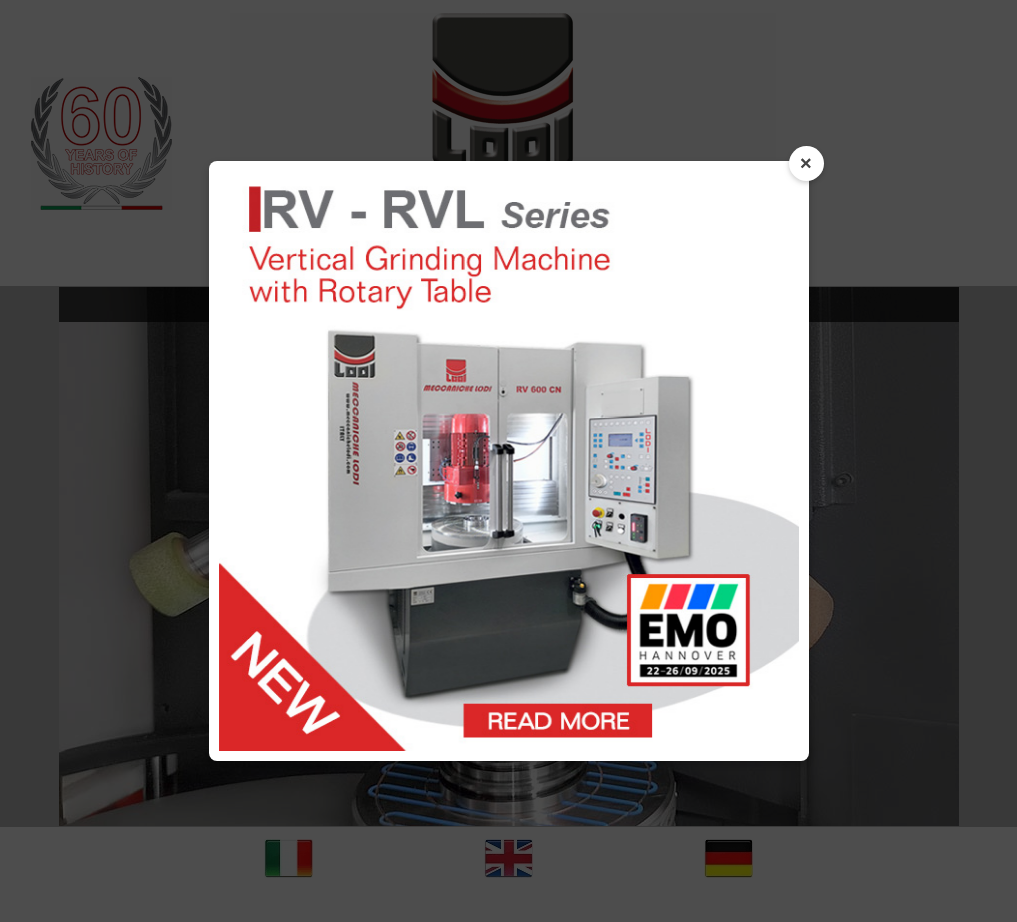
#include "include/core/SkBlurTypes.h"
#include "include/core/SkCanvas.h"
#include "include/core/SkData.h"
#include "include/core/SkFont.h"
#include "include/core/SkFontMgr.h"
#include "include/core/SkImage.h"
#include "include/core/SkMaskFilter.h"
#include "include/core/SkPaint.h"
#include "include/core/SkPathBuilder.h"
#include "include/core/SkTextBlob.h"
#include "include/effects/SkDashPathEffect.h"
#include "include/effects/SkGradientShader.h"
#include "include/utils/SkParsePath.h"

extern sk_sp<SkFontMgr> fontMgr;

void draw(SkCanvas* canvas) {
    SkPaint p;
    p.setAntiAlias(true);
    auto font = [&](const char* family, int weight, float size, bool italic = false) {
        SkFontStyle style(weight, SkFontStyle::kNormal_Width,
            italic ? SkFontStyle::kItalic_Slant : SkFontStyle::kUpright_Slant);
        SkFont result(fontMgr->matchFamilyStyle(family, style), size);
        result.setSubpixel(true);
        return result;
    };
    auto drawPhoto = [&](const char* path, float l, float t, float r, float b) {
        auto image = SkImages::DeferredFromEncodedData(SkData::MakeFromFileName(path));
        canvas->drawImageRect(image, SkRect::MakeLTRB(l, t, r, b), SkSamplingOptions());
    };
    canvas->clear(0xFF4D4D4D);
    drawPhoto("media/1.png", 31, 77, 172, 210);
    drawPhoto("media/2.png", 230, 13, 776, 161);
    p.setColor(0xFF393939);
    canvas->drawRect(SkRect::MakeLTRB(0, 286, 1017, 827), p);
    drawPhoto("media/3.png", 59, 287, 959, 826);
    p.setColor(0xB3000000);
    canvas->drawRect(SkRect::MakeLTRB(59, 287, 959, 322), p);
    drawPhoto("media/4.png", 264, 839, 313, 878);
    drawPhoto("media/5.png", 484, 839, 533, 878);
    drawPhoto("media/6.png", 704, 839, 753, 878);
    p.setColor(0x33000000);
    p.setMaskFilter(SkMaskFilter::MakeBlur(kNormal_SkBlurStyle, 4));
    canvas->drawRoundRect(SkRect::MakeLTRB(209, 165, 809, 765), 8, 8, p);
    p.setMaskFilter(nullptr);
    p.setColor(0xFFFFFFFF);
    canvas->drawRoundRect(SkRect::MakeLTRB(209, 161, 809, 761), 8, 8, p);
    drawPhoto("media/7.png", 219, 186, 799, 751);
    p.setColor(0x33000000);
    p.setMaskFilter(SkMaskFilter::MakeBlur(kNormal_SkBlurStyle, 2.5f));
    canvas->drawRoundRect(SkRect::MakeLTRB(789, 148, 824, 183), 17.5f, 17.5f, p);
    p.setMaskFilter(nullptr);
    p.setColor(0xFFFFFFFF);
    canvas->drawCircle(806.5f, 163.5f, 17.5f, p);
    auto font1 = font("Liberation Sans", 700, 20);
    p.setColor(0xFF444444);
    canvas->drawString("×", 800, 170, font1, p);
}
